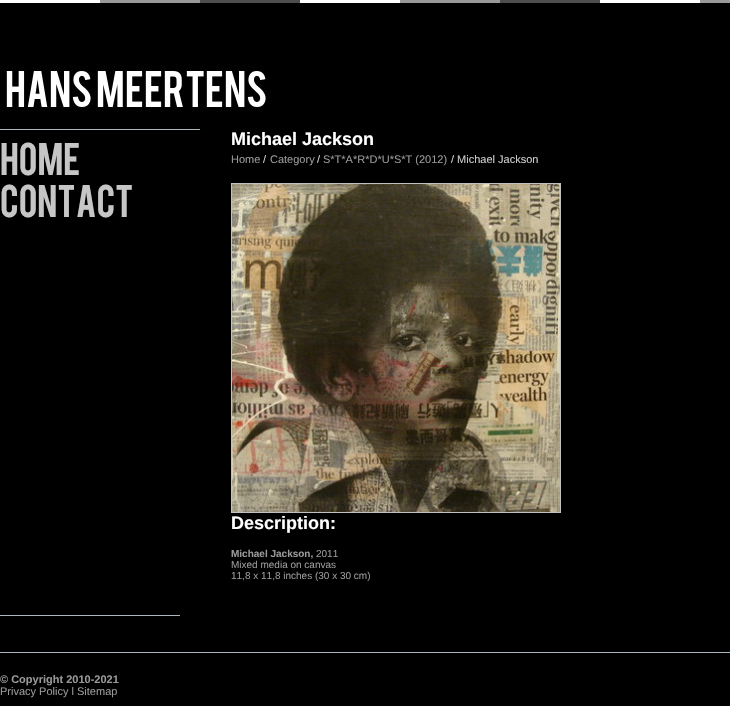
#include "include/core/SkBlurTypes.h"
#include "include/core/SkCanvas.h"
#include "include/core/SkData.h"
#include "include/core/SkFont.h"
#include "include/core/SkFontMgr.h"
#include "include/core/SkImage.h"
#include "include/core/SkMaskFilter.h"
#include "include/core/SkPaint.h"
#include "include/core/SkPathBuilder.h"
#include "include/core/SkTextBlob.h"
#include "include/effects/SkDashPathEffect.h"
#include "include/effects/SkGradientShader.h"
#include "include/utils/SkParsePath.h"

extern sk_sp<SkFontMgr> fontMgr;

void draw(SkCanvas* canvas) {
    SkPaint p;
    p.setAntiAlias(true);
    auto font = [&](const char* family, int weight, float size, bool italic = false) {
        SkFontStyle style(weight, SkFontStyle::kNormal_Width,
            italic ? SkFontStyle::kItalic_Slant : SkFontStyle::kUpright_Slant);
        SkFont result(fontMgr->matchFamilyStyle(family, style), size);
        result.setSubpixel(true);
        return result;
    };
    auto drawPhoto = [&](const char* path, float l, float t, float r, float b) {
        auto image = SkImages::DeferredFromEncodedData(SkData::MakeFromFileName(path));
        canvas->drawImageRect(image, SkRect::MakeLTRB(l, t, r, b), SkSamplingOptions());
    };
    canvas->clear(0xFF000000);
    {
        const struct { float l, t, r, b; SkColor color; } items[] = {
            {0, 0, 100, 3, 0xFFFFFFFF},
            {100, 0, 200, 3, 0xFF999999},
            {200, 0, 300, 3, 0xFF4D4D4D},
            {300, 0, 400, 3, 0xFFFFFFFF},
            {400, 0, 500, 3, 0xFF999999},
            {500, 0, 600, 3, 0xFF4D4D4D},
            {600, 0, 700, 3, 0xFFFFFFFF},
            {700, 0, 730, 3, 0xFF999999},
        };
        for (auto [l, t, r, b, color] : items) {
            p.setColor(color);
            canvas->drawRect(SkRect::MakeLTRB(l, t, r, b), p);
        }
    }
    drawPhoto("media/1.png", 1, 65, 270, 113);
    p.setColor(0xFFAAB7BF);
    canvas->drawRect(SkRect::MakeLTRB(0, 129, 200, 130), p);
    auto font1 = font("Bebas", 400, 36);
    p.setColor(0xFFC6C6C6);
    canvas->drawString("Home", 0, 175, font1, p);
    canvas->drawString("Contact", 0, 217, font1, p);
    auto font2 = font("Liberation Sans", 700, 18);
    p.setColor(0xFFFFFFFF);
    canvas->drawString("Michael Jackson", 231, 145, font2, p);
    auto font3 = font("Liberation Sans", 400, 11);
    p.setColor(0xFF999999);
    canvas->drawString("Home", 231, 163, font3, p);
    p.setColor(0xFFCCCCCC);
    canvas->drawString("/", 263, 163, font3, p);
    p.setColor(0xFF999999);
    canvas->drawString("Category", 270, 163, font3, p);
    p.setColor(0xFFCCCCCC);
    canvas->drawString("/", 317, 163, font3, p);
    p.setColor(0xFF999999);
    canvas->drawString("S*T*A*R*D*U*S*T (2012)", 323, 163, font3, p);
    p.setColor(0xFFCCCCCC);
    canvas->drawString("/ Michael Jackson", 451, 163, font3, p);
    p.setStyle(SkPaint::kStroke_Style);
    p.setStrokeWidth(1);
    p.setColor(0xFFC3C1C1);
    canvas->drawRect(SkRect::MakeLTRB(231.5f, 183.5f, 560.5f, 512.5f), p);
    drawPhoto("media/2.png", 232, 184, 560, 512);
    p.setStyle(SkPaint::kFill_Style);
    p.setColor(0xFFFFFFFF);
    canvas->drawString("Description:", 231, 529, font2, p);
    auto font4 = font("Liberation Sans", 700, 10);
    p.setColor(0xFF999999);
    canvas->drawString("Michael Jackson,", 231, 557, font4, p);
    auto font5 = font("Liberation Sans", 400, 10);
    {
        const struct { const char* s; float x, y; } items[] = {
            {"2011", 316, 557},
            {"Mixed media on canvas", 231, 568},
            {"11,8 x 11,8 inches (30 x 30 cm)", 231, 579},
        };
        for (auto [s, x, y] : items) {
            canvas->drawString(s, x, y, font5, p);
        }
    }
    p.setColor(0xFFAAB7BF);
    canvas->drawRect(SkRect::MakeLTRB(0, 652, 730, 653), p);
    canvas->drawRect(SkRect::MakeLTRB(0, 615, 180, 616), p);
    auto font6 = font("Liberation Sans", 700, 11);
    p.setColor(0xFF999999);
    canvas->drawString("© Copyright 2010-2021", 0, 683, font6, p);
    canvas->drawString("Privacy Policy l Sitemap", 0, 695, font3, p);
}
